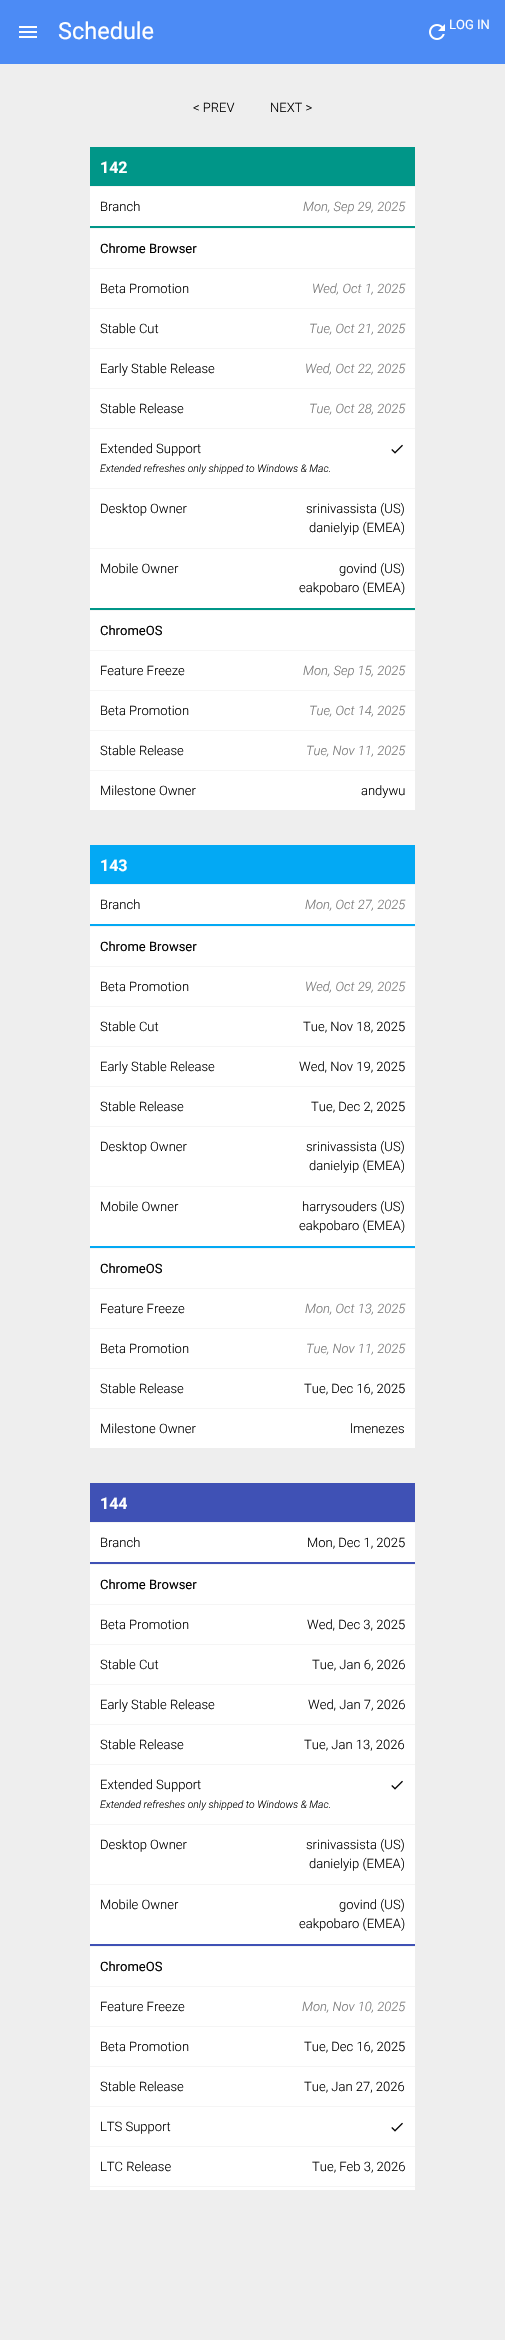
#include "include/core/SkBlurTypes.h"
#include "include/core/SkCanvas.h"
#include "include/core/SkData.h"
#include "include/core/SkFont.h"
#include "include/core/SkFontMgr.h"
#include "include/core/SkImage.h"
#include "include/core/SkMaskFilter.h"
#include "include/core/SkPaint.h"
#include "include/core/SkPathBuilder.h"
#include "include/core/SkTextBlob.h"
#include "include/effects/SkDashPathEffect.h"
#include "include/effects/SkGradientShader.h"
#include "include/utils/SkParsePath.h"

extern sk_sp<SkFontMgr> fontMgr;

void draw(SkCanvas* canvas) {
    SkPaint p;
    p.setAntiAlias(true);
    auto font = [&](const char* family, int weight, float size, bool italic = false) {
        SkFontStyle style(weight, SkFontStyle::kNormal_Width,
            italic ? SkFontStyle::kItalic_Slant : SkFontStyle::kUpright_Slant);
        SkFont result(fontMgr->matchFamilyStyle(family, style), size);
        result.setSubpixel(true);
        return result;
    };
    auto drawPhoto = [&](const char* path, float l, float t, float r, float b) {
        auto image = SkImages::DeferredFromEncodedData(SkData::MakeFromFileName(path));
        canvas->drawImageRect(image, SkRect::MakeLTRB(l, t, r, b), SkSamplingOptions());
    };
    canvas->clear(0xFFEEEEEE);
    p.setColor(0xFF4C8BF5);
    canvas->drawRect(SkRect::MakeLTRB(0, 0, 505, 64), p);
    drawPhoto("media/1.png", 19, 26, 37, 38);
    auto font1 = font("Roboto", 400, 23.5f);
    p.setColor(0xFFFFFFFF);
    canvas->drawString("Schedule", 58, 39, font1, p);
    drawPhoto("media/2.png", 429, 24, 445, 40);
    auto font2 = font("Roboto", 300, 13);
    p.setColor(0xFF000000);
    canvas->drawString("< PREV", 193, 112, font2, p);
    canvas->drawString("NEXT >", 270, 112, font2, p);
    p.setColor(0xFF009688);
    canvas->drawRect(SkRect::MakeLTRB(90, 147, 415, 186), p);
    auto font3 = font("Roboto", 700, 16);
    p.setColor(0xFFFFFFFF);
    canvas->drawString("142", 100, 173, font3, p);
    canvas->drawRect(SkRect::MakeLTRB(90, 187, 415, 226), p);
    p.setColor(0xFFF5F5F5);
    canvas->drawRect(SkRect::MakeLTRB(90, 186, 415, 187), p);
    p.setColor(0xFF000000);
    canvas->drawString("Branch", 100, 211, font2, p);
    auto font4 = font("Roboto", 300, 13, true);
    p.setColor(0xFF777777);
    canvas->drawString("Mon, Sep 29, 2025", 303, 211, font4, p);
    {
        const struct { float l, t, r, b; SkColor color; } items[] = {
            {90, 226, 415, 228, 0xFF009688},
            {90, 229, 415, 268, 0xFFFFFFFF},
            {90, 228, 415, 229, 0xFFF5F5F5},
        };
        for (auto [l, t, r, b, color] : items) {
            p.setColor(color);
            canvas->drawRect(SkRect::MakeLTRB(l, t, r, b), p);
        }
    }
    auto font5 = font("Roboto", 400, 13);
    p.setColor(0xFF000000);
    canvas->drawString("Chrome Browser", 100, 253, font5, p);
    p.setColor(0xFFFFFFFF);
    canvas->drawRect(SkRect::MakeLTRB(90, 269, 415, 308), p);
    p.setColor(0xFFF5F5F5);
    canvas->drawRect(SkRect::MakeLTRB(90, 268, 415, 269), p);
    p.setColor(0xFF000000);
    canvas->drawString("Beta Promotion", 100, 293, font2, p);
    p.setColor(0xFF777777);
    canvas->drawString("Wed, Oct 1, 2025", 312, 293, font4, p);
    p.setColor(0xFFFFFFFF);
    canvas->drawRect(SkRect::MakeLTRB(90, 309, 415, 348), p);
    p.setColor(0xFFF5F5F5);
    canvas->drawRect(SkRect::MakeLTRB(90, 308, 415, 309), p);
    p.setColor(0xFF000000);
    canvas->drawString("Stable Cut", 100, 333, font2, p);
    p.setColor(0xFF777777);
    canvas->drawString("Tue, Oct 21, 2025", 309, 333, font4, p);
    p.setColor(0xFFFFFFFF);
    canvas->drawRect(SkRect::MakeLTRB(90, 349, 415, 388), p);
    p.setColor(0xFFF5F5F5);
    canvas->drawRect(SkRect::MakeLTRB(90, 348, 415, 349), p);
    p.setColor(0xFF000000);
    canvas->drawString("Early Stable Release", 100, 373, font2, p);
    p.setColor(0xFF777777);
    canvas->drawString("Wed, Oct 22, 2025", 305, 373, font4, p);
    p.setColor(0xFFFFFFFF);
    canvas->drawRect(SkRect::MakeLTRB(90, 389, 415, 428), p);
    p.setColor(0xFFF5F5F5);
    canvas->drawRect(SkRect::MakeLTRB(90, 388, 415, 389), p);
    p.setColor(0xFF000000);
    canvas->drawString("Stable Release", 100, 413, font2, p);
    p.setColor(0xFF777777);
    canvas->drawString("Tue, Oct 28, 2025", 309, 413, font4, p);
    p.setColor(0xFFFFFFFF);
    canvas->drawRect(SkRect::MakeLTRB(90, 429, 415, 488), p);
    p.setColor(0xFFF5F5F5);
    canvas->drawRect(SkRect::MakeLTRB(90, 428, 415, 429), p);
    p.setColor(0xFF000000);
    canvas->drawString("Extended Support", 100, 453, font2, p);
    auto font6 = font("Roboto", 300, 10.4f, true);
    canvas->drawString("Extended refreshes only shipped to Windows & Mac.", 100, 472, font6, p);
    drawPhoto("media/3.png", 391, 444, 403, 454);
    p.setColor(0xFFFFFFFF);
    canvas->drawRect(SkRect::MakeLTRB(90, 489, 415, 548), p);
    p.setColor(0xFFF5F5F5);
    canvas->drawRect(SkRect::MakeLTRB(90, 488, 415, 489), p);
    p.setColor(0xFF000000);
    {
        const struct { const char* s; float x, y; } items[] = {
            {"Desktop Owner", 100, 513},
            {"srinivassista (US)", 306, 513},
            {"danielyip (EMEA)", 309, 532},
        };
        for (auto [s, x, y] : items) {
            canvas->drawString(s, x, y, font2, p);
        }
    }
    p.setColor(0xFFFFFFFF);
    canvas->drawRect(SkRect::MakeLTRB(90, 549, 415, 608), p);
    p.setColor(0xFFF5F5F5);
    canvas->drawRect(SkRect::MakeLTRB(90, 548, 415, 549), p);
    p.setColor(0xFF000000);
    {
        const struct { const char* s; float x, y; } items[] = {
            {"Mobile Owner", 100, 573},
            {"govind (US)", 339, 573},
            {"eakpobaro (EMEA)", 299, 592},
        };
        for (auto [s, x, y] : items) {
            canvas->drawString(s, x, y, font2, p);
        }
    }
    {
        const struct { float l, t, r, b; SkColor color; } items[] = {
            {90, 608, 415, 610, 0xFF009688},
            {90, 611, 415, 650, 0xFFFFFFFF},
            {90, 610, 415, 611, 0xFFF5F5F5},
        };
        for (auto [l, t, r, b, color] : items) {
            p.setColor(color);
            canvas->drawRect(SkRect::MakeLTRB(l, t, r, b), p);
        }
    }
    p.setColor(0xFF000000);
    canvas->drawString("ChromeOS", 100, 635, font5, p);
    p.setColor(0xFFFFFFFF);
    canvas->drawRect(SkRect::MakeLTRB(90, 651, 415, 690), p);
    p.setColor(0xFFF5F5F5);
    canvas->drawRect(SkRect::MakeLTRB(90, 650, 415, 651), p);
    p.setColor(0xFF000000);
    canvas->drawString("Feature Freeze", 100, 675, font2, p);
    p.setColor(0xFF777777);
    canvas->drawString("Mon, Sep 15, 2025", 303, 675, font4, p);
    p.setColor(0xFFFFFFFF);
    canvas->drawRect(SkRect::MakeLTRB(90, 691, 415, 730), p);
    p.setColor(0xFFF5F5F5);
    canvas->drawRect(SkRect::MakeLTRB(90, 690, 415, 691), p);
    p.setColor(0xFF000000);
    canvas->drawString("Beta Promotion", 100, 715, font2, p);
    p.setColor(0xFF777777);
    canvas->drawString("Tue, Oct 14, 2025", 309, 715, font4, p);
    p.setColor(0xFFFFFFFF);
    canvas->drawRect(SkRect::MakeLTRB(90, 731, 415, 770), p);
    p.setColor(0xFFF5F5F5);
    canvas->drawRect(SkRect::MakeLTRB(90, 730, 415, 731), p);
    p.setColor(0xFF000000);
    canvas->drawString("Stable Release", 100, 755, font2, p);
    p.setColor(0xFF777777);
    canvas->drawString("Tue, Nov 11, 2025", 306, 755, font4, p);
    p.setColor(0xFFFFFFFF);
    canvas->drawRect(SkRect::MakeLTRB(90, 771, 415, 810), p);
    p.setColor(0xFFF5F5F5);
    canvas->drawRect(SkRect::MakeLTRB(90, 770, 415, 771), p);
    p.setColor(0xFF000000);
    canvas->drawString("Milestone Owner", 100, 795, font2, p);
    canvas->drawString("andywu", 361, 795, font2, p);
    p.setColor(0xFF03A9F4);
    canvas->drawRect(SkRect::MakeLTRB(90, 845, 415, 884), p);
    p.setColor(0xFFFFFFFF);
    canvas->drawString("143", 100, 871, font3, p);
    canvas->drawRect(SkRect::MakeLTRB(90, 885, 415, 924), p);
    p.setColor(0xFFF5F5F5);
    canvas->drawRect(SkRect::MakeLTRB(90, 884, 415, 885), p);
    p.setColor(0xFF000000);
    canvas->drawString("Branch", 100, 909, font2, p);
    p.setColor(0xFF777777);
    canvas->drawString("Mon, Oct 27, 2025", 305, 909, font4, p);
    {
        const struct { float l, t, r, b; SkColor color; } items[] = {
            {90, 924, 415, 926, 0xFF03A9F4},
            {90, 927, 415, 966, 0xFFFFFFFF},
            {90, 926, 415, 927, 0xFFF5F5F5},
        };
        for (auto [l, t, r, b, color] : items) {
            p.setColor(color);
            canvas->drawRect(SkRect::MakeLTRB(l, t, r, b), p);
        }
    }
    p.setColor(0xFF000000);
    canvas->drawString("Chrome Browser", 100, 951, font5, p);
    p.setColor(0xFFFFFFFF);
    canvas->drawRect(SkRect::MakeLTRB(90, 967, 415, 1006), p);
    p.setColor(0xFFF5F5F5);
    canvas->drawRect(SkRect::MakeLTRB(90, 966, 415, 967), p);
    p.setColor(0xFF000000);
    canvas->drawString("Beta Promotion", 100, 991, font2, p);
    p.setColor(0xFF777777);
    canvas->drawString("Wed, Oct 29, 2025", 305, 991, font4, p);
    p.setColor(0xFFFFFFFF);
    canvas->drawRect(SkRect::MakeLTRB(90, 1007, 415, 1046), p);
    p.setColor(0xFFF5F5F5);
    canvas->drawRect(SkRect::MakeLTRB(90, 1006, 415, 1007), p);
    p.setColor(0xFF000000);
    canvas->drawString("Stable Cut", 100, 1031, font2, p);
    canvas->drawString("Tue, Nov 18, 2025", 303, 1031, font2, p);
    p.setColor(0xFFFFFFFF);
    canvas->drawRect(SkRect::MakeLTRB(90, 1047, 415, 1086), p);
    p.setColor(0xFFF5F5F5);
    canvas->drawRect(SkRect::MakeLTRB(90, 1046, 415, 1047), p);
    p.setColor(0xFF000000);
    canvas->drawString("Early Stable Release", 100, 1071, font2, p);
    canvas->drawString("Wed, Nov 19, 2025", 299, 1071, font2, p);
    p.setColor(0xFFFFFFFF);
    canvas->drawRect(SkRect::MakeLTRB(90, 1087, 415, 1126), p);
    p.setColor(0xFFF5F5F5);
    canvas->drawRect(SkRect::MakeLTRB(90, 1086, 415, 1087), p);
    p.setColor(0xFF000000);
    canvas->drawString("Stable Release", 100, 1111, font2, p);
    canvas->drawString("Tue, Dec 2, 2025", 311, 1111, font2, p);
    p.setColor(0xFFFFFFFF);
    canvas->drawRect(SkRect::MakeLTRB(90, 1127, 415, 1186), p);
    p.setColor(0xFFF5F5F5);
    canvas->drawRect(SkRect::MakeLTRB(90, 1126, 415, 1127), p);
    p.setColor(0xFF000000);
    {
        const struct { const char* s; float x, y; } items[] = {
            {"Desktop Owner", 100, 1151},
            {"srinivassista (US)", 306, 1151},
            {"danielyip (EMEA)", 309, 1170},
        };
        for (auto [s, x, y] : items) {
            canvas->drawString(s, x, y, font2, p);
        }
    }
    p.setColor(0xFFFFFFFF);
    canvas->drawRect(SkRect::MakeLTRB(90, 1187, 415, 1246), p);
    p.setColor(0xFFF5F5F5);
    canvas->drawRect(SkRect::MakeLTRB(90, 1186, 415, 1187), p);
    p.setColor(0xFF000000);
    {
        const struct { const char* s; float x, y; } items[] = {
            {"Mobile Owner", 100, 1211},
            {"harrysouders (US)", 302, 1211},
            {"eakpobaro (EMEA)", 299, 1230},
        };
        for (auto [s, x, y] : items) {
            canvas->drawString(s, x, y, font2, p);
        }
    }
    {
        const struct { float l, t, r, b; SkColor color; } items[] = {
            {90, 1246, 415, 1248, 0xFF03A9F4},
            {90, 1249, 415, 1288, 0xFFFFFFFF},
            {90, 1248, 415, 1249, 0xFFF5F5F5},
        };
        for (auto [l, t, r, b, color] : items) {
            p.setColor(color);
            canvas->drawRect(SkRect::MakeLTRB(l, t, r, b), p);
        }
    }
    p.setColor(0xFF000000);
    canvas->drawString("ChromeOS", 100, 1273, font5, p);
    p.setColor(0xFFFFFFFF);
    canvas->drawRect(SkRect::MakeLTRB(90, 1289, 415, 1328), p);
    p.setColor(0xFFF5F5F5);
    canvas->drawRect(SkRect::MakeLTRB(90, 1288, 415, 1289), p);
    p.setColor(0xFF000000);
    canvas->drawString("Feature Freeze", 100, 1313, font2, p);
    p.setColor(0xFF777777);
    canvas->drawString("Mon, Oct 13, 2025", 305, 1313, font4, p);
    p.setColor(0xFFFFFFFF);
    canvas->drawRect(SkRect::MakeLTRB(90, 1329, 415, 1368), p);
    p.setColor(0xFFF5F5F5);
    canvas->drawRect(SkRect::MakeLTRB(90, 1328, 415, 1329), p);
    p.setColor(0xFF000000);
    canvas->drawString("Beta Promotion", 100, 1353, font2, p);
    p.setColor(0xFF777777);
    canvas->drawString("Tue, Nov 11, 2025", 306, 1353, font4, p);
    p.setColor(0xFFFFFFFF);
    canvas->drawRect(SkRect::MakeLTRB(90, 1369, 415, 1408), p);
    p.setColor(0xFFF5F5F5);
    canvas->drawRect(SkRect::MakeLTRB(90, 1368, 415, 1369), p);
    p.setColor(0xFF000000);
    canvas->drawString("Stable Release", 100, 1393, font2, p);
    canvas->drawString("Tue, Dec 16, 2025", 304, 1393, font2, p);
    p.setColor(0xFFFFFFFF);
    canvas->drawRect(SkRect::MakeLTRB(90, 1409, 415, 1448), p);
    p.setColor(0xFFF5F5F5);
    canvas->drawRect(SkRect::MakeLTRB(90, 1408, 415, 1409), p);
    p.setColor(0xFF000000);
    canvas->drawString("Milestone Owner", 100, 1433, font2, p);
    canvas->drawString("lmenezes", 350, 1433, font2, p);
    p.setColor(0xFF3F51B5);
    canvas->drawRect(SkRect::MakeLTRB(90, 1483, 415, 1522), p);
    p.setColor(0xFFFFFFFF);
    canvas->drawString("144", 100, 1509, font3, p);
    canvas->drawRect(SkRect::MakeLTRB(90, 1523, 415, 1562), p);
    p.setColor(0xFFF5F5F5);
    canvas->drawRect(SkRect::MakeLTRB(90, 1522, 415, 1523), p);
    p.setColor(0xFF000000);
    canvas->drawString("Branch", 100, 1547, font2, p);
    canvas->drawString("Mon, Dec 1, 2025", 307, 1547, font2, p);
    {
        const struct { float l, t, r, b; SkColor color; } items[] = {
            {90, 1562, 415, 1564, 0xFF3F51B5},
            {90, 1565, 415, 1604, 0xFFFFFFFF},
            {90, 1564, 415, 1565, 0xFFF5F5F5},
        };
        for (auto [l, t, r, b, color] : items) {
            p.setColor(color);
            canvas->drawRect(SkRect::MakeLTRB(l, t, r, b), p);
        }
    }
    p.setColor(0xFF000000);
    canvas->drawString("Chrome Browser", 100, 1589, font5, p);
    p.setColor(0xFFFFFFFF);
    canvas->drawRect(SkRect::MakeLTRB(90, 1605, 415, 1644), p);
    p.setColor(0xFFF5F5F5);
    canvas->drawRect(SkRect::MakeLTRB(90, 1604, 415, 1605), p);
    p.setColor(0xFF000000);
    canvas->drawString("Beta Promotion", 100, 1629, font2, p);
    canvas->drawString("Wed, Dec 3, 2025", 307, 1629, font2, p);
    p.setColor(0xFFFFFFFF);
    canvas->drawRect(SkRect::MakeLTRB(90, 1645, 415, 1684), p);
    p.setColor(0xFFF5F5F5);
    canvas->drawRect(SkRect::MakeLTRB(90, 1644, 415, 1645), p);
    p.setColor(0xFF000000);
    canvas->drawString("Stable Cut", 100, 1669, font2, p);
    canvas->drawString("Tue, Jan 6, 2026", 312, 1669, font2, p);
    p.setColor(0xFFFFFFFF);
    canvas->drawRect(SkRect::MakeLTRB(90, 1685, 415, 1724), p);
    p.setColor(0xFFF5F5F5);
    canvas->drawRect(SkRect::MakeLTRB(90, 1684, 415, 1685), p);
    p.setColor(0xFF000000);
    canvas->drawString("Early Stable Release", 100, 1709, font2, p);
    canvas->drawString("Wed, Jan 7, 2026", 308, 1709, font2, p);
    p.setColor(0xFFFFFFFF);
    canvas->drawRect(SkRect::MakeLTRB(90, 1725, 415, 1764), p);
    p.setColor(0xFFF5F5F5);
    canvas->drawRect(SkRect::MakeLTRB(90, 1724, 415, 1725), p);
    p.setColor(0xFF000000);
    canvas->drawString("Stable Release", 100, 1749, font2, p);
    canvas->drawString("Tue, Jan 13, 2026", 304, 1749, font2, p);
    p.setColor(0xFFFFFFFF);
    canvas->drawRect(SkRect::MakeLTRB(90, 1765, 415, 1824), p);
    p.setColor(0xFFF5F5F5);
    canvas->drawRect(SkRect::MakeLTRB(90, 1764, 415, 1765), p);
    p.setColor(0xFF000000);
    canvas->drawString("Extended Support", 100, 1789, font2, p);
    canvas->drawString("Extended refreshes only shipped to Windows & Mac.", 100, 1808, font6, p);
    drawPhoto("media/3.png", 391, 1780, 403, 1790);
    p.setColor(0xFFFFFFFF);
    canvas->drawRect(SkRect::MakeLTRB(90, 1825, 415, 1884), p);
    p.setColor(0xFFF5F5F5);
    canvas->drawRect(SkRect::MakeLTRB(90, 1824, 415, 1825), p);
    p.setColor(0xFF000000);
    {
        const struct { const char* s; float x, y; } items[] = {
            {"Desktop Owner", 100, 1849},
            {"srinivassista (US)", 306, 1849},
            {"danielyip (EMEA)", 309, 1868},
        };
        for (auto [s, x, y] : items) {
            canvas->drawString(s, x, y, font2, p);
        }
    }
    p.setColor(0xFFFFFFFF);
    canvas->drawRect(SkRect::MakeLTRB(90, 1885, 415, 1944), p);
    p.setColor(0xFFF5F5F5);
    canvas->drawRect(SkRect::MakeLTRB(90, 1884, 415, 1885), p);
    p.setColor(0xFF000000);
    {
        const struct { const char* s; float x, y; } items[] = {
            {"Mobile Owner", 100, 1909},
            {"govind (US)", 339, 1909},
            {"eakpobaro (EMEA)", 299, 1928},
        };
        for (auto [s, x, y] : items) {
            canvas->drawString(s, x, y, font2, p);
        }
    }
    {
        const struct { float l, t, r, b; SkColor color; } items[] = {
            {90, 1944, 415, 1946, 0xFF3F51B5},
            {90, 1947, 415, 1986, 0xFFFFFFFF},
            {90, 1946, 415, 1947, 0xFFF5F5F5},
        };
        for (auto [l, t, r, b, color] : items) {
            p.setColor(color);
            canvas->drawRect(SkRect::MakeLTRB(l, t, r, b), p);
        }
    }
    p.setColor(0xFF000000);
    canvas->drawString("ChromeOS", 100, 1971, font5, p);
    p.setColor(0xFFFFFFFF);
    canvas->drawRect(SkRect::MakeLTRB(90, 1987, 415, 2026), p);
    p.setColor(0xFFF5F5F5);
    canvas->drawRect(SkRect::MakeLTRB(90, 1986, 415, 1987), p);
    p.setColor(0xFF000000);
    canvas->drawString("Feature Freeze", 100, 2011, font2, p);
    p.setColor(0xFF777777);
    canvas->drawString("Mon, Nov 10, 2025", 302, 2011, font4, p);
    p.setColor(0xFFFFFFFF);
    canvas->drawRect(SkRect::MakeLTRB(90, 2027, 415, 2066), p);
    p.setColor(0xFFF5F5F5);
    canvas->drawRect(SkRect::MakeLTRB(90, 2026, 415, 2027), p);
    p.setColor(0xFF000000);
    canvas->drawString("Beta Promotion", 100, 2051, font2, p);
    canvas->drawString("Tue, Dec 16, 2025", 304, 2051, font2, p);
    p.setColor(0xFFFFFFFF);
    canvas->drawRect(SkRect::MakeLTRB(90, 2067, 415, 2106), p);
    p.setColor(0xFFF5F5F5);
    canvas->drawRect(SkRect::MakeLTRB(90, 2066, 415, 2067), p);
    p.setColor(0xFF000000);
    canvas->drawString("Stable Release", 100, 2091, font2, p);
    canvas->drawString("Tue, Jan 27, 2026", 304, 2091, font2, p);
    p.setColor(0xFFFFFFFF);
    canvas->drawRect(SkRect::MakeLTRB(90, 2107, 415, 2146), p);
    p.setColor(0xFFF5F5F5);
    canvas->drawRect(SkRect::MakeLTRB(90, 2106, 415, 2107), p);
    p.setColor(0xFF000000);
    canvas->drawString("LTS Support", 100, 2131, font2, p);
    drawPhoto("media/3.png", 391, 2122, 403, 2132);
    p.setColor(0xFFFFFFFF);
    canvas->drawRect(SkRect::MakeLTRB(90, 2147, 415, 2186), p);
    p.setColor(0xFFF5F5F5);
    canvas->drawRect(SkRect::MakeLTRB(90, 2146, 415, 2147), p);
    p.setColor(0xFF000000);
    canvas->drawString("LTC Release", 100, 2171, font2, p);
    canvas->drawString("Tue, Feb 3, 2026", 312, 2171, font2, p);
    p.setColor(0xFFFFFFFF);
    canvas->drawRect(SkRect::MakeLTRB(90, 2187, 415, 2190), p);
    p.setColor(0xFFF5F5F5);
    canvas->drawRect(SkRect::MakeLTRB(90, 2186, 415, 2187), p);
    p.setColor(0xFFFFFFFF);
    canvas->drawString("LOG IN", 449, 29, font5, p);
}
